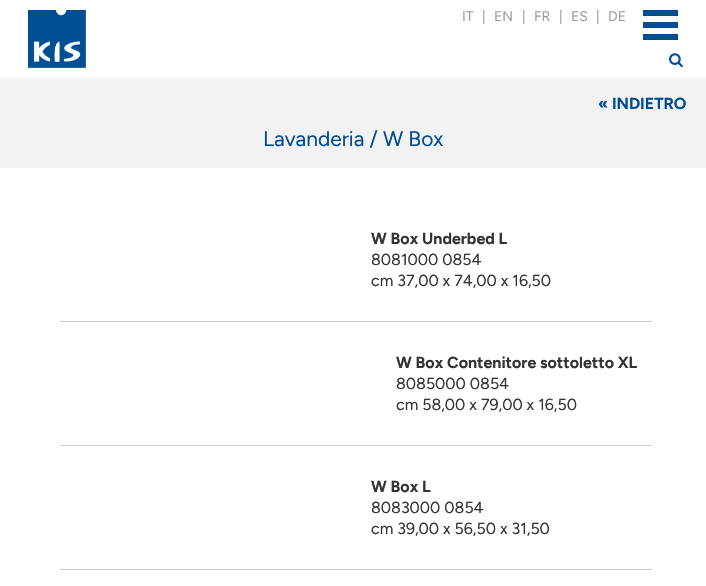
#include "include/core/SkBlurTypes.h"
#include "include/core/SkCanvas.h"
#include "include/core/SkData.h"
#include "include/core/SkFont.h"
#include "include/core/SkFontMgr.h"
#include "include/core/SkImage.h"
#include "include/core/SkMaskFilter.h"
#include "include/core/SkPaint.h"
#include "include/core/SkPathBuilder.h"
#include "include/core/SkTextBlob.h"
#include "include/effects/SkDashPathEffect.h"
#include "include/effects/SkGradientShader.h"
#include "include/utils/SkParsePath.h"

extern sk_sp<SkFontMgr> fontMgr;

void draw(SkCanvas* canvas) {
    SkPaint p;
    p.setAntiAlias(true);
    auto font = [&](const char* family, int weight, float size, bool italic = false) {
        SkFontStyle style(weight, SkFontStyle::kNormal_Width,
            italic ? SkFontStyle::kItalic_Slant : SkFontStyle::kUpright_Slant);
        SkFont result(fontMgr->matchFamilyStyle(family, style), size);
        result.setSubpixel(true);
        return result;
    };
    auto drawPhoto = [&](const char* path, float l, float t, float r, float b) {
        auto image = SkImages::DeferredFromEncodedData(SkData::MakeFromFileName(path));
        canvas->drawImageRect(image, SkRect::MakeLTRB(l, t, r, b), SkSamplingOptions());
    };
    canvas->clear(0xFFFFFFFF);
    auto font1 = font("Figtree", 400, 14);
    p.setColor(0xFF9D9D9D);
    {
        const struct { const char* s; float x, y; } items[] = {
            {"IT", 462, 21},
            {"|", 482, 21},
            {"EN", 494, 21},
            {"|", 522, 21},
            {"FR", 534, 21},
            {"|", 559, 21},
            {"ES", 571, 21},
            {"|", 596, 21},
            {"DE", 608, 21},
        };
        for (auto [s, x, y] : items) {
            canvas->drawString(s, x, y, font1, p);
        }
    }
    drawPhoto("media/1.png", 28, 10, 86, 68);
    {
        const struct { float l, t, r, b; SkColor color; } items[] = {
            {643, 22, 678, 28, 0xFF004F95},
            {643, 10, 678, 16, 0xFF004F95},
            {643, 34, 678, 40, 0xFF004F95},
        };
        for (auto [l, t, r, b, color] : items) {
            p.setColor(color);
            canvas->drawRect(SkRect::MakeLTRB(l, t, r, b), p);
        }
    }
    drawPhoto("media/2.png", 669, 53, 683, 68);
    p.setColor(0xFFF2F2F2);
    canvas->drawRect(SkRect::MakeLTRB(0, 78, 706, 168), p);
    auto font2 = font("Figtree", 700, 16);
    p.setColor(0xFF004B93);
    canvas->drawString("« INDIETRO", 598, 109, font2, p);
    auto font3 = font("Figtree", 400, 21);
    canvas->drawString("Lavanderia / W Box", 263, 146, font3, p);
    p.setColor(0xFFCCCCCC);
    canvas->drawRect(SkRect::MakeLTRB(60, 321, 652, 322), p);
    p.setColor(0xFF333333);
    canvas->drawString("W Box Underbed L", 371, 244, font2, p);
    auto font4 = font("Figtree", 400, 16);
    canvas->drawString("8081000 0854", 371, 265, font4, p);
    canvas->drawString("cm 37,00 x 74,00 x 16,50", 371, 286, font4, p);
    p.setColor(0xFFCCCCCC);
    canvas->drawRect(SkRect::MakeLTRB(60, 445, 652, 446), p);
    p.setColor(0xFF333333);
    canvas->drawString("W Box Contenitore sottoletto XL", 396, 368, font2, p);
    canvas->drawString("8085000 0854", 396, 389, font4, p);
    canvas->drawString("cm 58,00 x 79,00 x 16,50", 396, 410, font4, p);
    p.setColor(0xFFCCCCCC);
    canvas->drawRect(SkRect::MakeLTRB(60, 569, 652, 570), p);
    p.setColor(0xFF333333);
    canvas->drawString("W Box L", 371, 492, font2, p);
    canvas->drawString("8083000 0854", 371, 513, font4, p);
    canvas->drawString("cm 39,00 x 56,50 x 31,50", 371, 534, font4, p);
}
